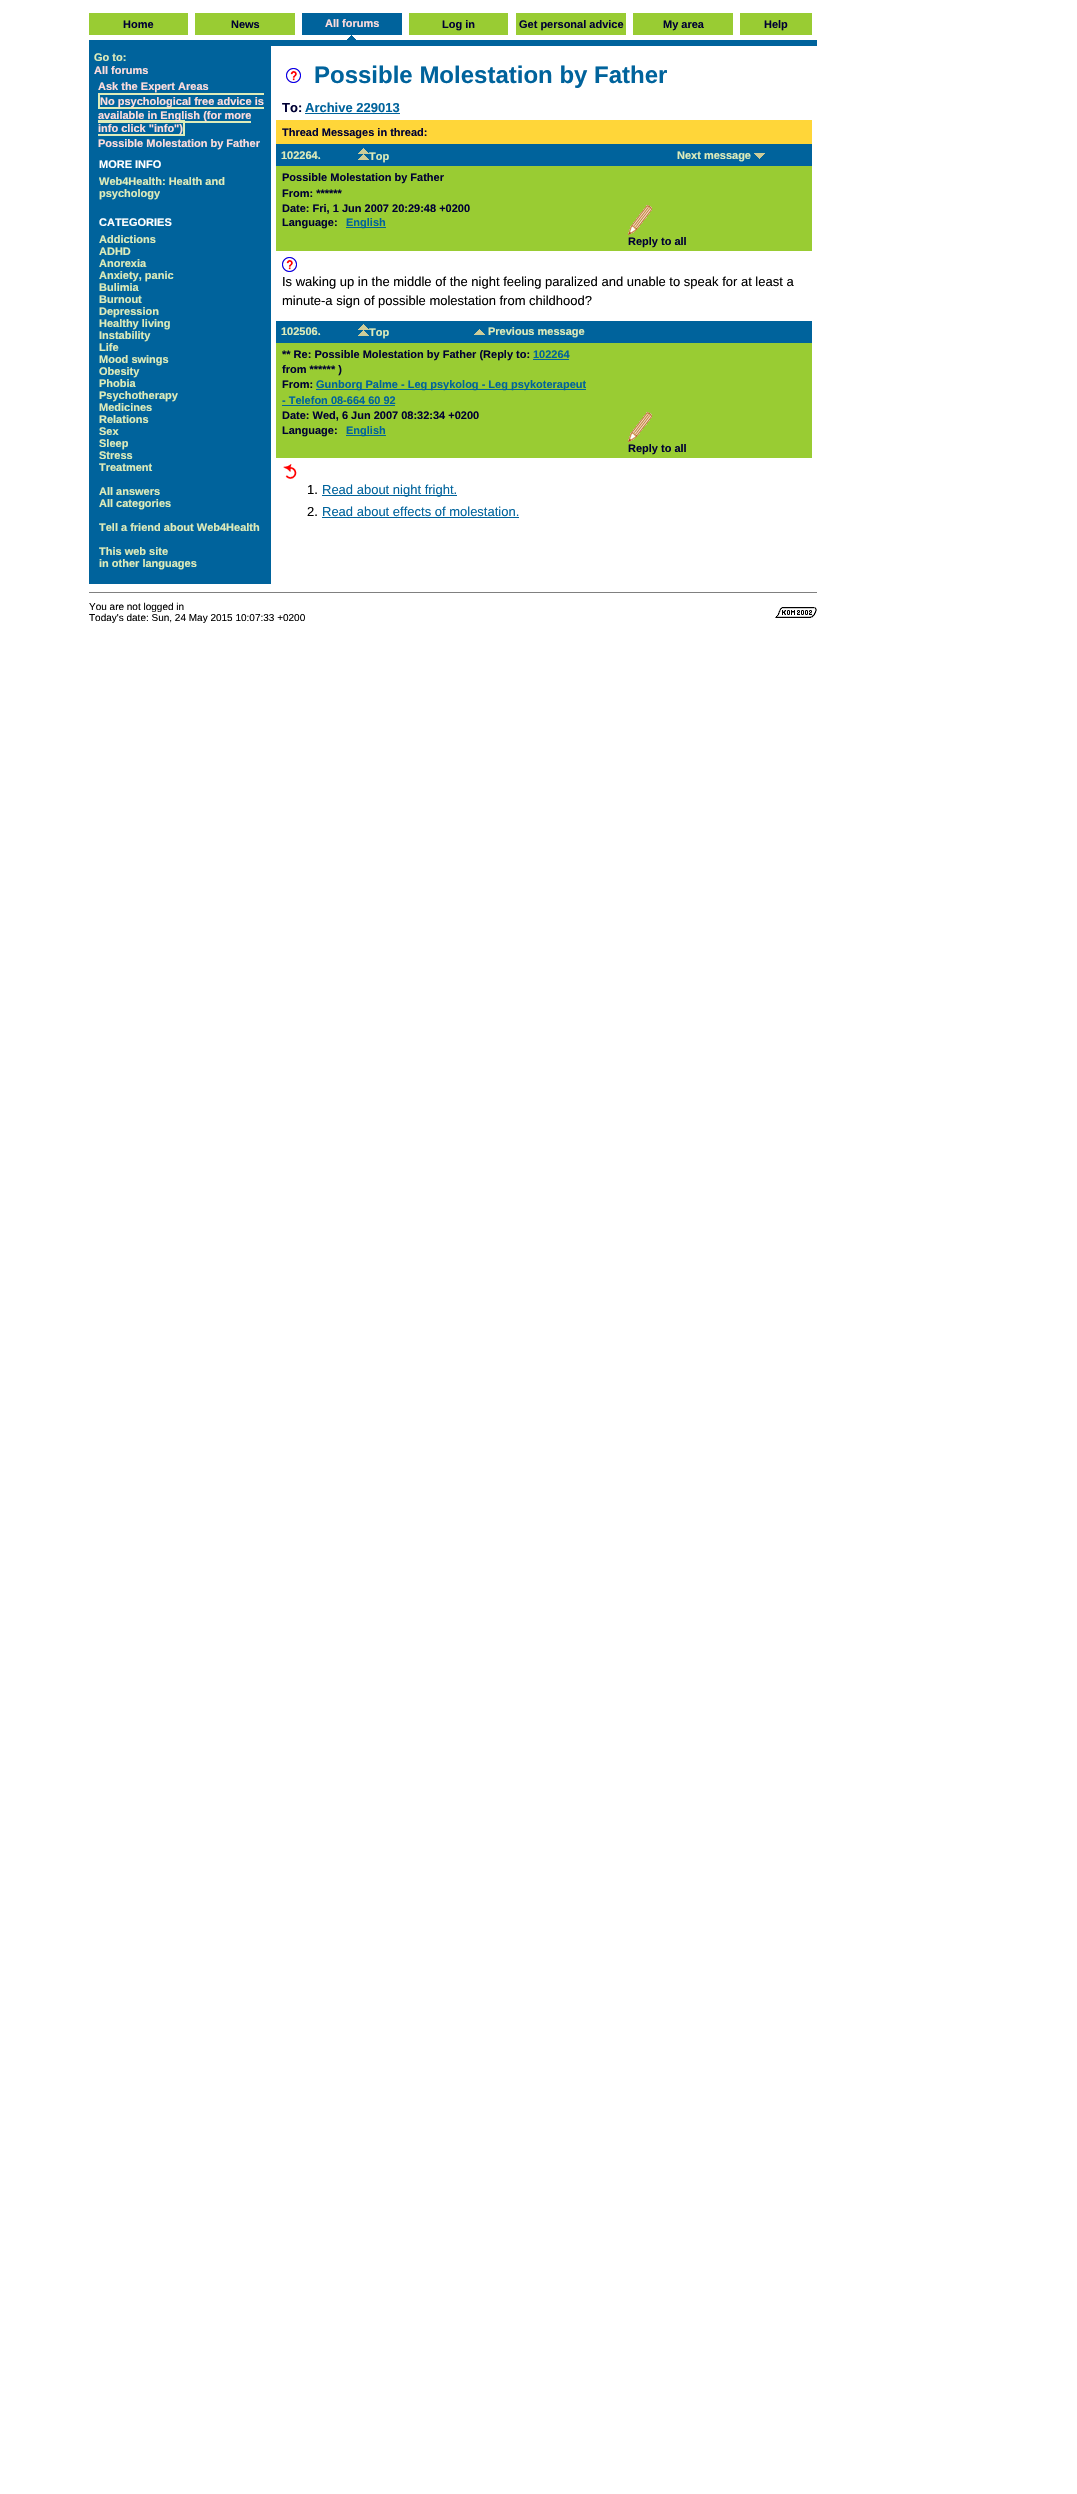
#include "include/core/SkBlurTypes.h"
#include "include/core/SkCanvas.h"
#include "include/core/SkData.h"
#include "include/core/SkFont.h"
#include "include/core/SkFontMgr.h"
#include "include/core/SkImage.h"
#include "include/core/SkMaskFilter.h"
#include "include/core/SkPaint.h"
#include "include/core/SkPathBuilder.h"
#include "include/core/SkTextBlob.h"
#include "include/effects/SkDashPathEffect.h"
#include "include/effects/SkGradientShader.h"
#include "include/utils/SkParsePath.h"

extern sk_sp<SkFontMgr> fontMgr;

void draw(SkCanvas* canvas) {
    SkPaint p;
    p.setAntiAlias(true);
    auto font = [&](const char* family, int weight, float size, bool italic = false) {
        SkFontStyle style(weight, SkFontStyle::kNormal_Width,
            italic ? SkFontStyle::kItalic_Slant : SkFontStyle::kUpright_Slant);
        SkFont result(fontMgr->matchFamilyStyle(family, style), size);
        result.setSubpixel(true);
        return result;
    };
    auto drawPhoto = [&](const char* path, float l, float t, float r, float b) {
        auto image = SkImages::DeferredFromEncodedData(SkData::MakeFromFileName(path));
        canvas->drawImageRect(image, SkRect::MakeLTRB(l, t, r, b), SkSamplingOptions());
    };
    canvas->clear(0xFFFFFFFF);
    p.setColor(0xFF99CC33);
    canvas->drawRect(SkRect::MakeLTRB(89, 13, 188, 35), p);
    auto font1 = font("Liberation Sans", 700, 11);
    p.setColor(0xFF000033);
    canvas->drawString("Home", 123, 28, font1, p);
    p.setColor(0xFF99CC33);
    canvas->drawRect(SkRect::MakeLTRB(195, 13, 295, 35), p);
    p.setColor(0xFF000033);
    canvas->drawString("News", 231, 28, font1, p);
    p.setColor(0xFF00639C);
    canvas->drawRect(SkRect::MakeLTRB(302, 13, 402, 35), p);
    p.setColor(0xFFFFDDDD);
    canvas->drawString("All forums", 325, 27, font1, p);
    p.setColor(0xFF99CC33);
    canvas->drawRect(SkRect::MakeLTRB(409, 13, 508, 35), p);
    p.setColor(0xFF000033);
    canvas->drawString("Log in", 442, 28, font1, p);
    p.setColor(0xFF99CC33);
    canvas->drawRect(SkRect::MakeLTRB(516, 13, 626, 35), p);
    p.setColor(0xFF000033);
    canvas->drawString("Get personal advice", 519, 28, font1, p);
    p.setColor(0xFF99CC33);
    canvas->drawRect(SkRect::MakeLTRB(633, 13, 733, 35), p);
    p.setColor(0xFF000033);
    canvas->drawString("My area", 663, 28, font1, p);
    p.setColor(0xFF99CC33);
    canvas->drawRect(SkRect::MakeLTRB(740, 13, 812, 35), p);
    p.setColor(0xFF000033);
    canvas->drawString("Help", 764, 28, font1, p);
    drawPhoto("media/1.png", 347, 35, 356, 40);
    p.setColor(0xFF00639C);
    canvas->drawRect(SkRect::MakeLTRB(89, 40, 817, 46), p);
    canvas->drawRect(SkRect::MakeLTRB(89, 46, 271, 584), p);
    p.setColor(0xFFDEECBA);
    canvas->drawString("Go to:", 94, 61, font1, p);
    p.setColor(0xFFFFDDDD);
    canvas->drawString("All forums", 94, 74, font1, p);
    canvas->drawString("Ask the Expert Areas", 98, 90, font1, p);
    p.setColor(0xFFDEECBA);
    canvas->drawRect(SkRect::MakeLTRB(98, 107, 264, 109), p);
    p.setColor(0xFFFFDDDD);
    canvas->drawString("No psychological free advice is", 100, 105, font1, p);
    {
        const struct { float l, t, r, b; SkColor color; } items[] = {
            {98, 93, 264, 95, 0xFFDEECBA},
            {98, 93, 100, 109, 0xFFDEECBA},
            {98, 121, 251, 123, 0xFFDEECBA},
            {98, 120, 185, 121, 0xFFDEECBA},
            {183, 120, 185, 136, 0xFFDEECBA},
        };
        for (auto [l, t, r, b, color] : items) {
            p.setColor(color);
            canvas->drawRect(SkRect::MakeLTRB(l, t, r, b), p);
        }
    }
    p.setColor(0xFFFFDDDD);
    canvas->drawString("available in English (for more", 98, 119, font1, p);
    p.setColor(0xFFDEECBA);
    canvas->drawRect(SkRect::MakeLTRB(98, 134, 185, 136), p);
    p.setColor(0xFFFFDDDD);
    canvas->drawString("info click \"info\")", 98, 132, font1, p);
    canvas->drawString("Possible Molestation by Father", 98, 147, font1, p);
    p.setColor(0xFFFFFFFF);
    canvas->drawString("MORE INFO", 99, 168, font1, p);
    p.setColor(0xFFDEECBA);
    canvas->drawString("Web4Health: Health and", 99, 185, font1, p);
    canvas->drawString("psychology", 99, 197, font1, p);
    p.setColor(0xFFFFFFFF);
    canvas->drawString("CATEGORIES", 99, 226, font1, p);
    p.setColor(0xFFDEECBA);
    {
        const struct { const char* s; float x, y; } items[] = {
            {"Addictions", 99, 243},
            {"ADHD", 99, 255},
            {"Anorexia", 99, 267},
            {"Anxiety, panic", 99, 279},
            {"Bulimia", 99, 291},
            {"Burnout", 99, 303},
            {"Depression", 99, 315},
            {"Healthy living", 99, 327},
            {"Instability", 99, 339},
            {"Life", 99, 351},
            {"Mood swings", 99, 363},
            {"Obesity", 99, 375},
            {"Phobia", 99, 387},
            {"Psychotherapy", 99, 399},
            {"Medicines", 99, 411},
            {"Relations", 99, 423},
            {"Sex", 99, 435},
            {"Sleep", 99, 447},
            {"Stress", 99, 459},
            {"Treatment", 99, 471},
            {"All answers", 99, 495},
            {"All categories", 99, 507},
            {"Tell a friend about Web4Health", 99, 531},
            {"This web site", 99, 555},
            {"in other languages", 99, 567},
        };
        for (auto [s, x, y] : items) {
            canvas->drawString(s, x, y, font1, p);
        }
    }
    drawPhoto("media/2.png", 286, 68, 301, 83);
    auto font2 = font("Liberation Sans", 700, 24);
    p.setColor(0xFF00639C);
    canvas->drawString("Possible Molestation by Father", 314, 83, font2, p);
    auto font3 = font("Liberation Sans", 700, 13);
    p.setColor(0xFF000033);
    canvas->drawString("To:", 282, 112, font3, p);
    p.setColor(0xFF00639C);
    canvas->drawString("Archive 229013", 305, 112, font3, p);
    canvas->drawRect(SkRect::MakeLTRB(305, 113, 400, 114), p);
    p.setColor(0xFFFFD639);
    canvas->drawRect(SkRect::MakeLTRB(276, 120, 812, 144), p);
    p.setColor(0xFF000033);
    canvas->drawString("Thread Messages in thread:", 282, 136, font1, p);
    p.setColor(0xFF00639C);
    canvas->drawRect(SkRect::MakeLTRB(276, 144, 812, 166), p);
    p.setColor(0xFFDEECBA);
    canvas->drawString("102264.", 281, 159, font1, p);
    drawPhoto("media/3.png", 358, 148, 369, 160);
    canvas->drawString("Top", 369, 160, font1, p);
    canvas->drawString("Next message", 677, 159, font1, p);
    drawPhoto("media/4.png", 754, 153, 765, 159);
    p.setColor(0xFF99CC33);
    canvas->drawRect(SkRect::MakeLTRB(276, 166, 812, 251), p);
    p.setColor(0xFF000033);
    {
        const struct { const char* s; float x, y; } items[] = {
            {"Possible Molestation by Father", 282, 181},
            {"From: ******", 282, 197},
            {"Date: Fri, 1 Jun 2007 20:29:48 +0200", 282, 212},
            {"Language:", 282, 226},
        };
        for (auto [s, x, y] : items) {
            canvas->drawString(s, x, y, font1, p);
        }
    }
    p.setColor(0xFF00639C);
    canvas->drawRect(SkRect::MakeLTRB(346, 227, 386, 228), p);
    canvas->drawString("English", 346, 226, font1, p);
    drawPhoto("media/5.png", 628, 205, 652, 235);
    p.setColor(0xFF000033);
    canvas->drawString("Reply to all", 628, 245, font1, p);
    drawPhoto("media/2.png", 282, 257, 297, 272);
    auto font4 = font("Liberation Sans", 400, 13);
    p.setColor(0xFF000000);
    canvas->drawString("Is waking up in the middle of the night feeling paralized and unable to speak for at least a", 282, 286, font4, p);
    canvas->drawString("minute-a sign of possible molestation from childhood?", 282, 305, font4, p);
    p.setColor(0xFF00639C);
    canvas->drawRect(SkRect::MakeLTRB(276, 321, 812, 343), p);
    p.setColor(0xFFDEECBA);
    canvas->drawString("102506.", 281, 335, font1, p);
    drawPhoto("media/3.png", 358, 324, 369, 336);
    canvas->drawString("Top", 369, 336, font1, p);
    drawPhoto("media/6.png", 474, 329, 485, 335);
    canvas->drawString("Previous message", 488, 335, font1, p);
    p.setColor(0xFF99CC33);
    canvas->drawRect(SkRect::MakeLTRB(276, 343, 812, 458), p);
    p.setColor(0xFF000033);
    canvas->drawString("** Re: Possible Molestation by Father (Reply to:", 282, 358, font1, p);
    p.setColor(0xFF00639C);
    canvas->drawString("102264", 533, 358, font1, p);
    canvas->drawRect(SkRect::MakeLTRB(533, 359, 569, 360), p);
    p.setColor(0xFF000033);
    canvas->drawString("from ****** )", 282, 373, font1, p);
    canvas->drawString("From:", 282, 388, font1, p);
    p.setColor(0xFF00639C);
    canvas->drawRect(SkRect::MakeLTRB(316, 389, 586, 390), p);
    canvas->drawString("Gunborg Palme - Leg psykolog - Leg psykoterapeut", 316, 388, font1, p);
    canvas->drawString("- Telefon 08-664 60 92", 282, 404, font1, p);
    canvas->drawRect(SkRect::MakeLTRB(282, 405, 395, 406), p);
    p.setColor(0xFF000033);
    canvas->drawString("Date: Wed, 6 Jun 2007 08:32:34 +0200", 282, 419, font1, p);
    canvas->drawString("Language:", 282, 434, font1, p);
    p.setColor(0xFF00639C);
    canvas->drawRect(SkRect::MakeLTRB(346, 435, 386, 436), p);
    canvas->drawString("English", 346, 434, font1, p);
    drawPhoto("media/5.png", 628, 412, 652, 442);
    p.setColor(0xFF000033);
    canvas->drawString("Reply to all", 628, 452, font1, p);
    drawPhoto("media/7.png", 283, 464, 297, 479);
    p.setColor(0xFF000000);
    canvas->drawString("1.", 307, 494, font4, p);
    p.setColor(0xFF00639C);
    canvas->drawRect(SkRect::MakeLTRB(322, 495, 457, 496), p);
    canvas->drawString("Read about night fright.", 322, 494, font4, p);
    p.setColor(0xFF000000);
    canvas->drawString("2.", 307, 516, font4, p);
    p.setColor(0xFF00639C);
    canvas->drawString("Read about effects of molestation.", 322, 516, font4, p);
    canvas->drawRect(SkRect::MakeLTRB(322, 517, 519, 518), p);
    p.setColor(0xFF808080);
    canvas->drawRect(SkRect::MakeLTRB(89, 592, 817, 593), p);
    auto font5 = font("Liberation Sans", 400, 10);
    p.setColor(0xFF000000);
    canvas->drawString("You are not logged in", 89, 610, font5, p);
    canvas->drawString("Today's date: Sun, 24 May 2015 10:07:33 +0200", 89, 621, font5, p);
    drawPhoto("media/8.png", 775, 607, 817, 618);
}
